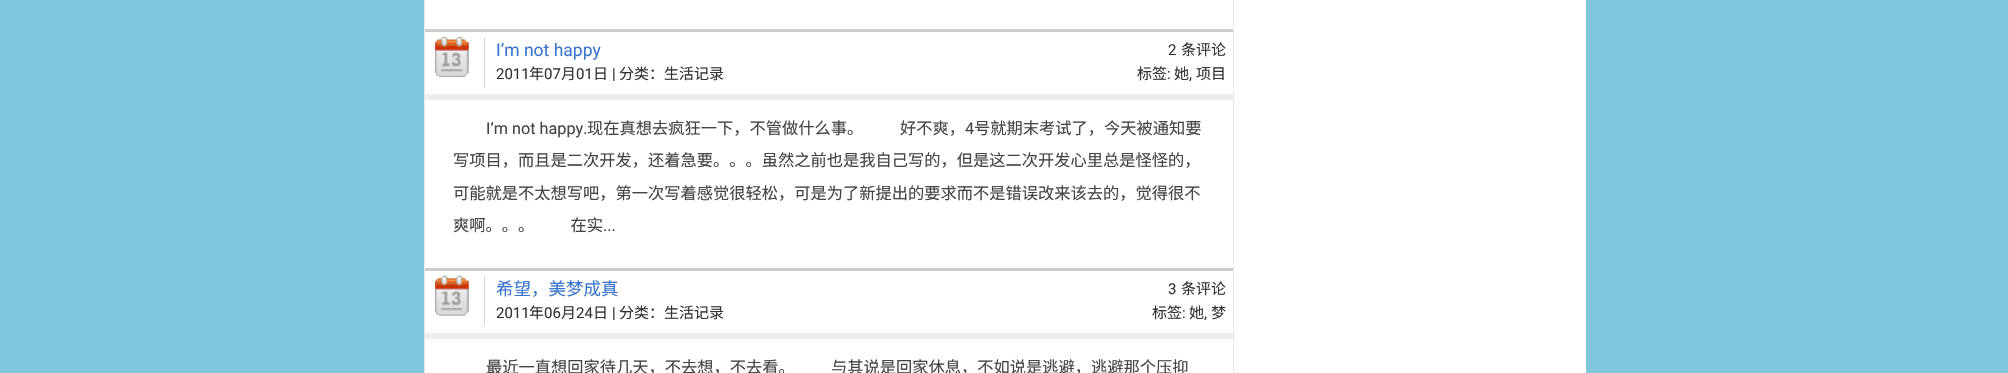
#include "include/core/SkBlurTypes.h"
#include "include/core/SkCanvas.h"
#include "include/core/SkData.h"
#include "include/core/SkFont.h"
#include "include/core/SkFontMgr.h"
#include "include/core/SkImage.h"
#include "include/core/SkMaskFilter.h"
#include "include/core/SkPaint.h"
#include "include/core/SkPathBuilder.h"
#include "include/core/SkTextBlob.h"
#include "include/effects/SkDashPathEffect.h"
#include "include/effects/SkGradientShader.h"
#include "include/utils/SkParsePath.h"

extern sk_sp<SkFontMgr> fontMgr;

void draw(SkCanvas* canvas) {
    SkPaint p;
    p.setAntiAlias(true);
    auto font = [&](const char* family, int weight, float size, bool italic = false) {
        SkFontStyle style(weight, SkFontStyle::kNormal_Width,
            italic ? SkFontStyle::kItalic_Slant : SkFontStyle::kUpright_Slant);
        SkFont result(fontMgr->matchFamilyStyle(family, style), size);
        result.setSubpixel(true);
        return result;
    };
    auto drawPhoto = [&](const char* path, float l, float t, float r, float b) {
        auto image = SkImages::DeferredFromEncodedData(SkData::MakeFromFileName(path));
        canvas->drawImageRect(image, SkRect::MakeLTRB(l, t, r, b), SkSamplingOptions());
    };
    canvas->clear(0xFF80C7DB);
    {
        const struct { float l, t, r, b; SkColor color; } items[] = {
            {425, 0, 1586, 373, 0xFFFFFFFF},
            {1233, 0, 1234, 373, 0xFFE9E9E9},
            {424, 0, 425, 373, 0xFFE9E9E9},
            {425, 29, 1233, 32, 0xFFCCCCCC},
            {425, 94, 1233, 100, 0xFFEEEEEE},
        };
        for (auto [l, t, r, b, color] : items) {
            p.setColor(color);
            canvas->drawRect(SkRect::MakeLTRB(l, t, r, b), p);
        }
    }
    drawPhoto("media/1.png", 434, 37, 469, 77);
    p.setColor(0xFFD7D7D7);
    canvas->drawRect(SkRect::MakeLTRB(484, 38, 485, 88), p);
    auto font1 = font("Roboto", 400, 17.5f);
    p.setColor(0xFF3975CE);
    canvas->drawString("I‘m not happy", 496, 56, font1, p);
    auto font2 = font("Roboto", 400, 15);
    p.setColor(0xFF333333);
    canvas->drawString("2", 1168, 55, font2, p);
    auto font3 = font("Noto Sans CJK SC", 400, 15);
    canvas->drawString("条评论", 1181, 55, font3, p);
    canvas->drawString("2011", 496, 79, font2, p);
    canvas->drawString("年", 529, 79, font3, p);
    canvas->drawString("07", 544, 79, font2, p);
    canvas->drawString("月", 561, 79, font3, p);
    canvas->drawString("01", 576, 79, font2, p);
    canvas->drawString("日", 593, 79, font3, p);
    canvas->drawString("|", 612, 79, font2, p);
    canvas->drawString("分类：生活记录", 619, 79, font3, p);
    canvas->drawString("标签", 1137, 79, font3, p);
    canvas->drawString(":", 1167, 79, font2, p);
    canvas->drawString("她", 1174, 79, font3, p);
    canvas->drawString(",", 1189, 79, font2, p);
    canvas->drawString("项目", 1196, 79, font3, p);
    auto font4 = font("Roboto", 400, 16.25f);
    p.setColor(0xFF444444);
    canvas->drawString("I‘m not happy.", 486, 134, font4, p);
    auto font5 = font("Noto Sans CJK SC", 400, 16.25f);
    canvas->drawString("现在真想去疯狂一下，不管做什么事。", 587, 134, font5, p);
    canvas->drawString("好不爽，", 900, 134, font5, p);
    canvas->drawString("4", 965, 134, font4, p);
    {
        const struct { const char* s; float x, y; } items[] = {
            {"号就期末考试了，今天被通知要", 974, 134},
            {"写项目，而且是二次开发，还着急要。。。虽然之前也是我自己写的，但是这二次开发心里总是怪怪的，", 453, 166},
            {"可能就是不太想写吧，第一次写着感觉很轻松，可是为了新提出的要求而不是错误改来该去的，觉得很不", 453, 199},
            {"爽啊。。。 　　在实", 453, 231},
        };
        for (auto [s, x, y] : items) {
            canvas->drawString(s, x, y, font5, p);
        }
    }
    canvas->drawString("...", 603, 231, font4, p);
    p.setColor(0xFFCCCCCC);
    canvas->drawRect(SkRect::MakeLTRB(425, 268, 1233, 271), p);
    p.setColor(0xFFEEEEEE);
    canvas->drawRect(SkRect::MakeLTRB(425, 333, 1233, 339), p);
    drawPhoto("media/2.png", 434, 275, 469, 316);
    p.setColor(0xFFD7D7D7);
    canvas->drawRect(SkRect::MakeLTRB(484, 276, 485, 326), p);
    auto font6 = font("Noto Sans CJK SC", 400, 17.5f);
    p.setColor(0xFF3975CE);
    canvas->drawString("希望，美梦成真", 496, 295, font6, p);
    p.setColor(0xFF333333);
    canvas->drawString("3", 1168, 294, font2, p);
    canvas->drawString("条评论", 1181, 294, font3, p);
    canvas->drawString("2011", 496, 318, font2, p);
    canvas->drawString("年", 529, 318, font3, p);
    canvas->drawString("06", 544, 318, font2, p);
    canvas->drawString("月", 561, 318, font3, p);
    canvas->drawString("24", 576, 318, font2, p);
    canvas->drawString("日", 593, 318, font3, p);
    canvas->drawString("|", 612, 318, font2, p);
    canvas->drawString("分类：生活记录", 619, 318, font3, p);
    canvas->drawString("标签", 1152, 318, font3, p);
    canvas->drawString(":", 1182, 318, font2, p);
    canvas->drawString("她", 1189, 318, font3, p);
    canvas->drawString(",", 1204, 318, font2, p);
    canvas->drawString("梦", 1211, 318, font3, p);
    p.setColor(0xFF444444);
    canvas->drawString("最近一直想回家待几天，不去想，不去看。 　　与其说是回家休息，不如说是逃避，逃避那个压抑", 486, 373, font5, p);
}
